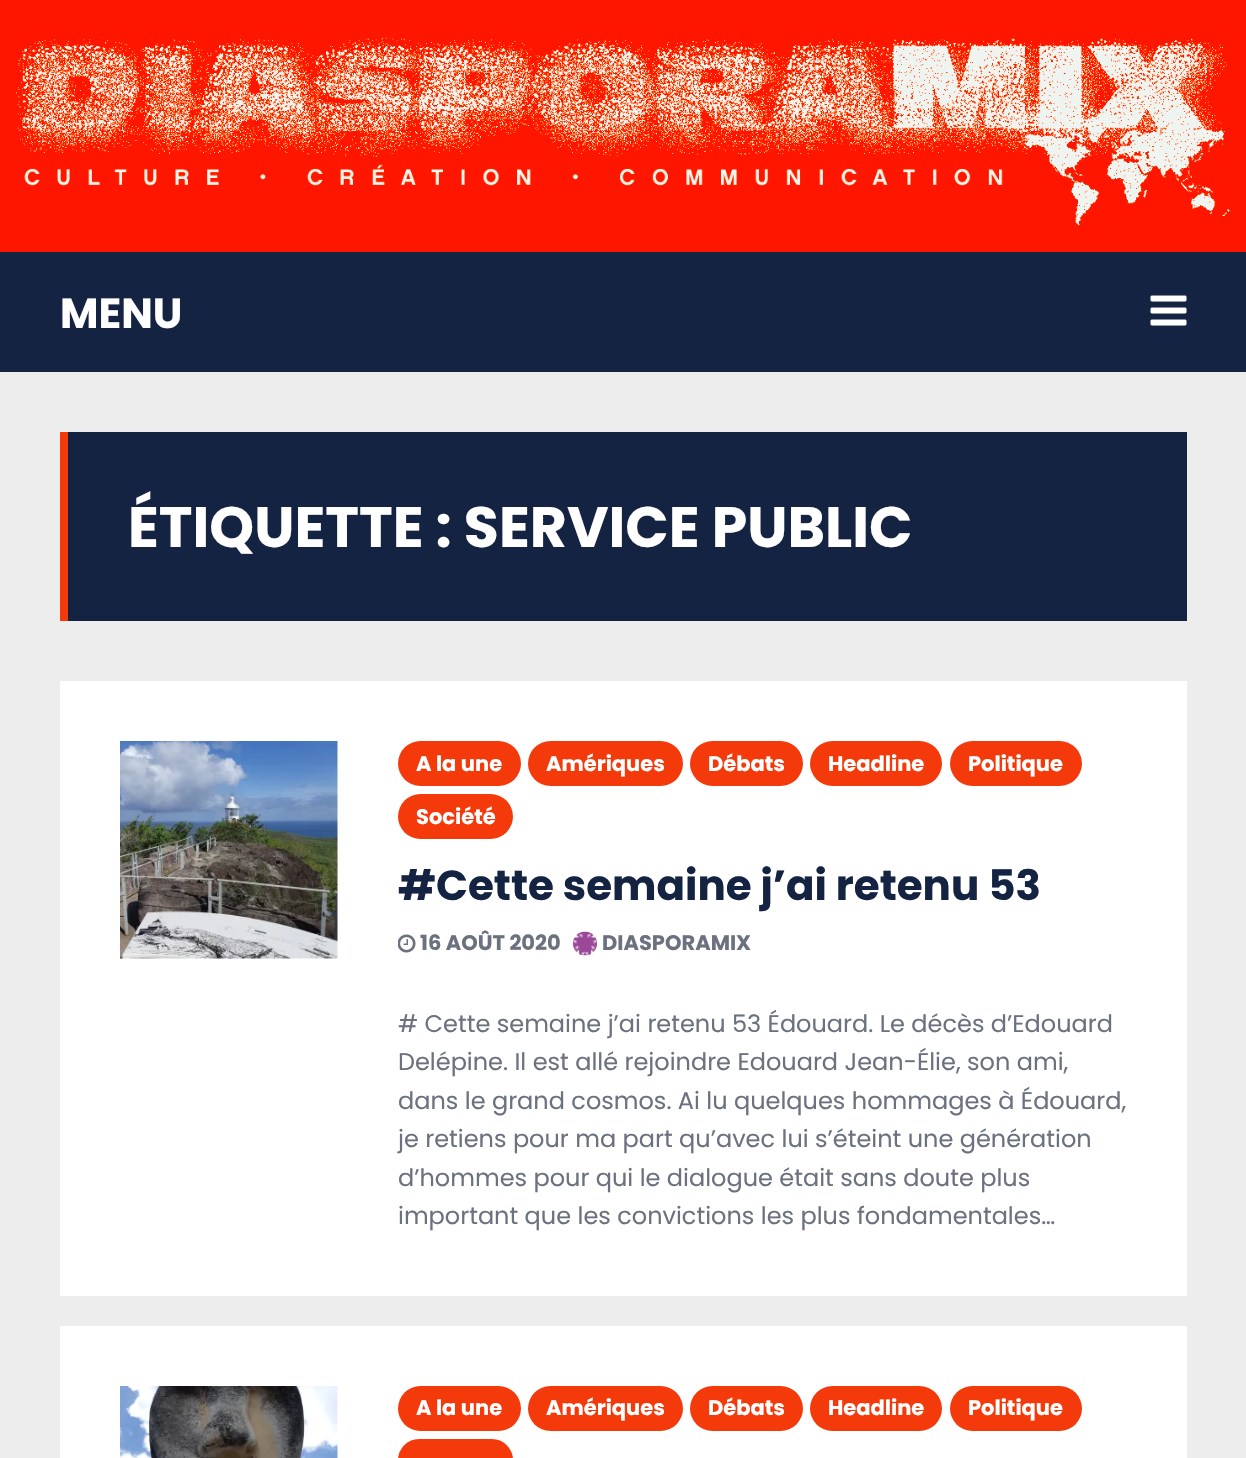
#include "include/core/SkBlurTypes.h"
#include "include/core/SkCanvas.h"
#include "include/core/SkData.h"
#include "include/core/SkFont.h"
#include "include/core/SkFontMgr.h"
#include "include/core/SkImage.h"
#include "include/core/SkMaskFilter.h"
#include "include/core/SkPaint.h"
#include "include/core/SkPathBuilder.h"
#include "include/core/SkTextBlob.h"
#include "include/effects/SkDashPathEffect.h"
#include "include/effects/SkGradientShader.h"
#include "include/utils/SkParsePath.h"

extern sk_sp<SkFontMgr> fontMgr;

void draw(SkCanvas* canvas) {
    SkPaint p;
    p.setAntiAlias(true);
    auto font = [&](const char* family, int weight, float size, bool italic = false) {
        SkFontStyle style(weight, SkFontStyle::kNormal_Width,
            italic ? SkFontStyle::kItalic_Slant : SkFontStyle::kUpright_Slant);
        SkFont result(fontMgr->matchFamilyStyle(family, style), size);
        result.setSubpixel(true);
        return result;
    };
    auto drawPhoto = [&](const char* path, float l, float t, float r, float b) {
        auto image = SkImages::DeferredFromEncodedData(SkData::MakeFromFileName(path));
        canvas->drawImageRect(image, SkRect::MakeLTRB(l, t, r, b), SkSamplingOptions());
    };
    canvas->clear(0xFFEDEDED);
    drawPhoto("media/1.png", 0, 0, 1246, 252);
    p.setColor(0xFF152342);
    canvas->drawRect(SkRect::MakeLTRB(0, 252, 1246, 372), p);
    auto font1 = font("Poppins", 700, 42);
    p.setColor(0xFFFFFFFF);
    canvas->drawString("MENU", 60, 328, font1, p);
    drawPhoto("media/2.png", 1150, 295, 1187, 326);
    p.setColor(0xFF152342);
    canvas->drawRect(SkRect::MakeLTRB(68, 432, 1187, 621), p);
    p.setColor(0xFFF43A0B);
    canvas->drawRect(SkRect::MakeLTRB(60, 432, 68, 621), p);
    auto font2 = font("Poppins", 700, 57);
    p.setColor(0xFFFFFFFF);
    canvas->drawString("ÉTIQUETTE : SERVICE PUBLIC", 128, 547, font2, p);
    canvas->drawRect(SkRect::MakeLTRB(60, 681, 1187, 1296), p);
    drawPhoto("media/3.png", 120, 741, 338, 959);
    p.setColor(0xFFF43A0B);
    canvas->drawRoundRect(SkRect::MakeLTRB(398, 741, 521, 786), 22.5f, 22.5f, p);
    auto font3 = font("Poppins", 700, 21);
    p.setColor(0xFFFFFFFF);
    canvas->drawString("A la une", 416, 771, font3, p);
    p.setColor(0xFFF43A0B);
    canvas->drawRoundRect(SkRect::MakeLTRB(528, 741, 683, 786), 22.5f, 22.5f, p);
    p.setColor(0xFFFFFFFF);
    canvas->drawString("Amériques", 546, 771, font3, p);
    p.setColor(0xFFF43A0B);
    canvas->drawRoundRect(SkRect::MakeLTRB(690, 741, 803, 786), 22.5f, 22.5f, p);
    p.setColor(0xFFFFFFFF);
    canvas->drawString("Débats", 708, 771, font3, p);
    p.setColor(0xFFF43A0B);
    canvas->drawRoundRect(SkRect::MakeLTRB(810, 741, 942, 786), 22.5f, 22.5f, p);
    p.setColor(0xFFFFFFFF);
    canvas->drawString("Headline", 828, 771, font3, p);
    p.setColor(0xFFF43A0B);
    canvas->drawRoundRect(SkRect::MakeLTRB(950, 741, 1082, 786), 22.5f, 22.5f, p);
    p.setColor(0xFFFFFFFF);
    canvas->drawString("Politique", 968, 771, font3, p);
    p.setColor(0xFFF43A0B);
    canvas->drawRoundRect(SkRect::MakeLTRB(398, 794, 513, 839), 22.5f, 22.5f, p);
    p.setColor(0xFFFFFFFF);
    canvas->drawString("Société", 416, 824, font3, p);
    p.setColor(0xFF152342);
    canvas->drawString("#Cette semaine j’ai retenu 53", 398, 900, font1, p);
    drawPhoto("media/4.png", 398, 934, 416, 953);
    p.setColor(0xFF6B717E);
    canvas->drawString("16 AOÛT 2020", 420, 950, font3, p);
    drawPhoto("media/5.png", 573, 931, 597, 956);
    canvas->drawString("DIASPORAMIX", 602, 950, font3, p);
    auto font4 = font("Poppins", 400, 24);
    {
        const struct { const char* s; float x, y; } items[] = {
            {"# Cette semaine j’ai retenu 53 Édouard. Le décès d’Edouard", 398, 1032},
            {"Delépine. Il est allé rejoindre Edouard Jean-Élie, son ami,", 398, 1070},
            {"dans le grand cosmos. Ai lu quelques hommages à Édouard,", 398, 1109},
            {"je retiens pour ma part qu’avec lui s’éteint une génération", 398, 1147},
            {"d’hommes pour qui le dialogue était sans doute plus", 398, 1186},
            {"important que les convictions les plus fondamentales…", 398, 1224},
        };
        for (auto [s, x, y] : items) {
            canvas->drawString(s, x, y, font4, p);
        }
    }
    p.setColor(0xFFFFFFFF);
    canvas->drawRect(SkRect::MakeLTRB(60, 1326, 1187, 1458), p);
    drawPhoto("media/6.png", 120, 1386, 338, 1458);
    p.setColor(0xFFF43A0B);
    canvas->drawRoundRect(SkRect::MakeLTRB(398, 1386, 521, 1431), 22.5f, 22.5f, p);
    p.setColor(0xFFFFFFFF);
    canvas->drawString("A la une", 416, 1415, font3, p);
    p.setColor(0xFFF43A0B);
    canvas->drawRoundRect(SkRect::MakeLTRB(528, 1386, 683, 1431), 22.5f, 22.5f, p);
    p.setColor(0xFFFFFFFF);
    canvas->drawString("Amériques", 546, 1415, font3, p);
    p.setColor(0xFFF43A0B);
    canvas->drawRoundRect(SkRect::MakeLTRB(690, 1386, 803, 1431), 22.5f, 22.5f, p);
    p.setColor(0xFFFFFFFF);
    canvas->drawString("Débats", 708, 1415, font3, p);
    p.setColor(0xFFF43A0B);
    canvas->drawRoundRect(SkRect::MakeLTRB(810, 1386, 942, 1431), 22.5f, 22.5f, p);
    p.setColor(0xFFFFFFFF);
    canvas->drawString("Headline", 828, 1415, font3, p);
    p.setColor(0xFFF43A0B);
    canvas->drawRoundRect(SkRect::MakeLTRB(950, 1386, 1082, 1431), 22.5f, 22.5f, p);
    p.setColor(0xFFFFFFFF);
    canvas->drawString("Politique", 968, 1415, font3, p);
    p.setColor(0xFFF43A0B);
    canvas->drawRoundRect(SkRect::MakeLTRB(398, 1439, 513, 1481), 22.5f, 22.5f, p);
}
